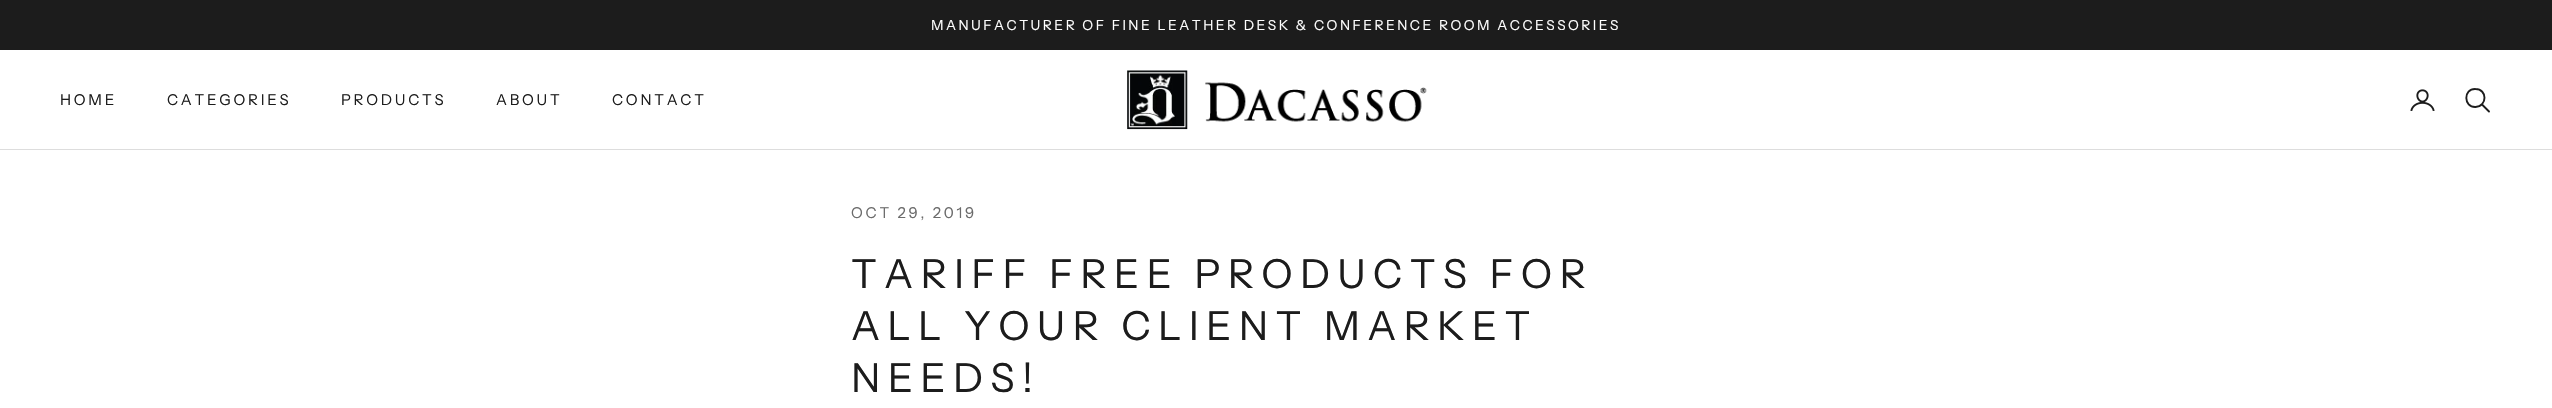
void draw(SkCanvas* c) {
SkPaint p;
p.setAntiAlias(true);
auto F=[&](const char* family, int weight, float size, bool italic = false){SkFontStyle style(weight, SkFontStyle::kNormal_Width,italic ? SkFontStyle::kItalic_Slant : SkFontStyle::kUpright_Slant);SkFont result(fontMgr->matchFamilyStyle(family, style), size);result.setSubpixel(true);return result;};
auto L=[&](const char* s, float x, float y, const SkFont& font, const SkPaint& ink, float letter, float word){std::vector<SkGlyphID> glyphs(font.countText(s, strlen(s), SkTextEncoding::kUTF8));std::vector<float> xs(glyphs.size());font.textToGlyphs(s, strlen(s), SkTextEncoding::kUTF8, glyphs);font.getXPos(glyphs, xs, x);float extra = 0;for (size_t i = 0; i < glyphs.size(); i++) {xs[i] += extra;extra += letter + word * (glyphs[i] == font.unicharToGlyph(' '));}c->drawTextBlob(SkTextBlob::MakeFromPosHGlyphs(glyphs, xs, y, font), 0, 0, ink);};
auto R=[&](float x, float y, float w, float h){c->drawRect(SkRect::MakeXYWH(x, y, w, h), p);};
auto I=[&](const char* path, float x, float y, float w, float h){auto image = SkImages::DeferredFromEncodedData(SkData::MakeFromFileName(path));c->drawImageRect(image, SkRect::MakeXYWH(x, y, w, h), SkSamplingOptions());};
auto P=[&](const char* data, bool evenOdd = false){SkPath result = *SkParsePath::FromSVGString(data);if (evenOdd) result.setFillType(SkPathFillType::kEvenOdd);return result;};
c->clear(0xffffffff);
p.setColor(0xff1c1c1c);
R(0,0,2552,50);
auto f1 = F("Instrument Sans",400,13.75);
p.setColor(0xffffffff);
L("MANUFACTURER OF FINE LEATHER DESK & CONFERENCE ROOM ACCESSORIES",931,30,f1,p,2.48,0);
p.setColor(0xffdddddd);
R(0,149,2552,1);
auto f2 = F("Instrument Sans",400,15);
p.setColor(0xff1c1c1c);
L("HOME",60,105,f2,p,2.75,0);
L("CATEGORIES",167,105,f2,p,2.75,0);
L("PRODUCTS",341,105,f2,p,2.75,0);
L("ABOUT",496,105,f2,p,2.75,0);
L("CONTACT",612,105,f2,p,2.75,0);
I("1.png",1127,70,300,60);
I("2.png",2410,89,25,22);
p.setStroke(true);
p.setStrokeWidth(1.9);
c->drawPath(P("M2475.5 89c-12.5-.5-12 18.5 0 18c12-.5 12-18 0-18z"),p);
p.setStrokeCap(SkPaint::kRound_Cap);
c->drawPath(P("M2482.5 105l6.5 6.5"),p);
p.setStroke(false);
p.setColor(0xff6b6b6b);
L("OCT 29, 2019",851,218,f2,p,2.75,0);
auto f3 = F("Instrument Sans",400,40);
p.setColor(0xff1c1c1c);
L("TARIFF FREE PRODUCTS FOR",851,288,f3,p,7.2,0);
L("ALL YOUR CLIENT MARKET",851,340,f3,p,7.2,0);
L("NEEDS!",851,392,f3,p,7.2,0);
}
